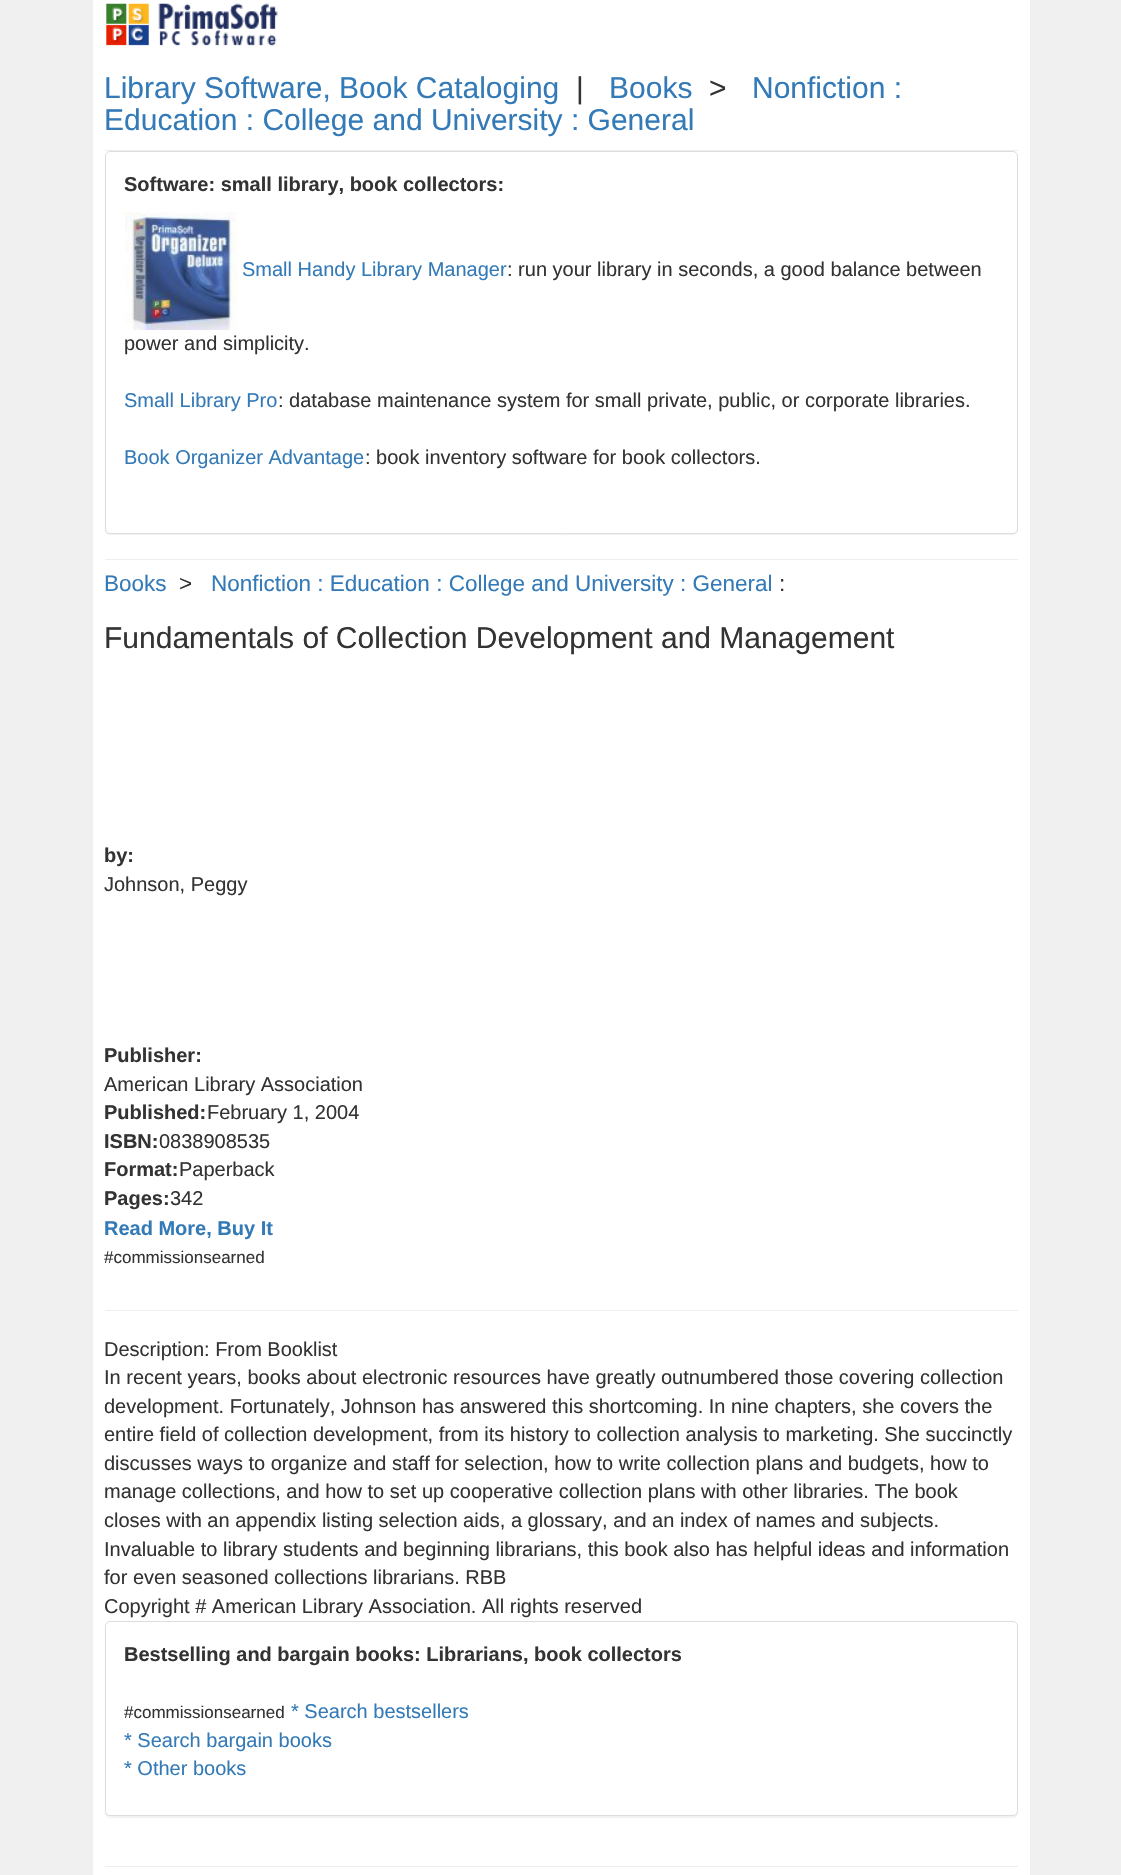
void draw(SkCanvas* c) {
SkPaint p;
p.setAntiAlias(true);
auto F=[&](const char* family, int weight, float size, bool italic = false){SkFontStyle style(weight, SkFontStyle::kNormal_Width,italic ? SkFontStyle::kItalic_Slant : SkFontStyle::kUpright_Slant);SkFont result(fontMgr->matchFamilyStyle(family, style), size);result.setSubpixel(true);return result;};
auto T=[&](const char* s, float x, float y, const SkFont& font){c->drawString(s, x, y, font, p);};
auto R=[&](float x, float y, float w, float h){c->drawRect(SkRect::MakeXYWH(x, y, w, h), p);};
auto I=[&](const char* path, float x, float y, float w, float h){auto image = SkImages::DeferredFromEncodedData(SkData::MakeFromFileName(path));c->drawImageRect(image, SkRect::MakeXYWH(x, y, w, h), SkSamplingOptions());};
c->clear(0xfff0f0f0);
p.setColor(0xffffffff);
R(93,0,937,1875);
I("1.png",106,3,172,43);
auto f1 = F("Liberation Sans",400,30);
p.setColor(0xff337ab7);
T("Library Software, Book Cataloging",104,98,f1);
p.setColor(0xff333333);
T("|",576,98,f1);
p.setColor(0xff337ab7);
T("Books",609,98,f1);
p.setColor(0xff333333);
T(">",709,98,f1);
p.setColor(0xff337ab7);
T("Nonfiction :",752,98,f1);
T("Education : College and University : General",104,130,f1);
p.setColor(0xffeeeeee);
R(105,150,913,1);
p.setColor(0x0d000000);
p.setMaskFilter(SkMaskFilter::MakeBlur(kNormal_SkBlurStyle, .5));
c->drawRoundRect(SkRect::MakeXYWH(105,153,913,382),5,5,p);
p.setMaskFilter(nullptr);
p.setColor(0xffffffff);
c->drawRoundRect(SkRect::MakeXYWH(105.5,151.5,912,382),4.5,4.5,p);
p.setStroke(true);
p.setStrokeWidth(1);
p.setColor(0xffdddddd);
c->drawRoundRect(SkRect::MakeXYWH(105.5,151.5,912,382),4.5,4.5,p);
auto f2 = F("Liberation Sans",700,20);
p.setStroke(false);
p.setColor(0xff333333);
T("Software: small library, book collectors:",124,191,f2);
I("2.png",125,212,113,118);
auto f3 = F("Liberation Sans",400,20);
p.setColor(0xff337ab7);
T("Small Handy Library Manager",242,276,f3);
p.setColor(0xff333333);
T(": run your library in seconds, a good balance between",507,276,f3);
T("power and simplicity.",124,350,f3);
p.setColor(0xff337ab7);
T("Small Library Pro",124,407,f3);
p.setColor(0xff333333);
T(": database maintenance system for small private, public, or corporate libraries.",278,407,f3);
p.setColor(0xff337ab7);
T("Book Organizer Advantage",124,464,f3);
p.setColor(0xff333333);
T(": book inventory software for book collectors.",365,464,f3);
p.setColor(0xffeeeeee);
R(105,559,913,1);
auto f4 = F("Liberation Sans",400,22.5);
p.setColor(0xff337ab7);
T("Books",104,591,f4);
p.setColor(0xff333333);
T(">",179,591,f4);
p.setColor(0xff337ab7);
T("Nonfiction : Education : College and University : General",211,591,f4);
p.setColor(0xff333333);
T(":",779,591,f4);
T("Fundamentals of Collection Development and Management",104,648,f1);
T("by:",104,862,f2);
T("Johnson, Peggy",104,891,f3);
T("Publisher:",104,1062,f2);
T("American Library Association",104,1091,f3);
T("Published:",104,1119,f2);
T("February 1, 2004",207,1119,f3);
T("ISBN:",104,1148,f2);
T("0838908535",159,1148,f3);
T("Format:",104,1176,f2);
T("Paperback",179,1176,f3);
T("Pages:",104,1205,f2);
T("342",170,1205,f3);
p.setColor(0xff337ab7);
T("Read More, Buy It",104,1235,f2);
auto f5 = F("Liberation Sans",400,17);
p.setColor(0xff333333);
T("#commissionsearned",104,1263,f5);
p.setColor(0xffeeeeee);
R(105,1310,913,1);
p.setColor(0xff333333);
T("Description: From Booklist",104,1356,f3);
T("In recent years, books about electronic resources have greatly outnumbered those covering collection",104,1384,f3);
T("development. Fortunately, Johnson has answered this shortcoming. In nine chapters, she covers the",104,1413,f3);
T("entire field of collection development, from its history to collection analysis to marketing. She succinctly",104,1441,f3);
T("discusses ways to organize and staff for selection, how to write collection plans and budgets, how to",104,1470,f3);
T("manage collections, and how to set up cooperative collection plans with other libraries. The book",104,1498,f3);
T("closes with an appendix listing selection aids, a glossary, and an index of names and subjects.",104,1527,f3);
T("Invaluable to library students and beginning librarians, this book also has helpful ideas and information",104,1556,f3);
T("for even seasoned collections librarians. RBB",104,1584,f3);
T("Copyright # American Library Association. All rights reserved",104,1613,f3);
p.setColor(0x0d000000);
p.setMaskFilter(SkMaskFilter::MakeBlur(kNormal_SkBlurStyle, .5));
c->drawRoundRect(SkRect::MakeXYWH(105,1623,913,195),5,5,p);
p.setMaskFilter(nullptr);
p.setColor(0xffffffff);
c->drawRoundRect(SkRect::MakeXYWH(105.5,1621.5,912,194),4.5,4.5,p);
p.setStroke(true);
p.setColor(0xffdddddd);
c->drawRoundRect(SkRect::MakeXYWH(105.5,1621.5,912,194),4.5,4.5,p);
p.setStroke(false);
p.setColor(0xff333333);
T("Bestselling and bargain books: Librarians, book collectors",124,1661,f2);
T("#commissionsearned",124,1718,f5);
p.setColor(0xff337ab7);
T("* Search bestsellers",291,1718,f3);
T("* Search bargain books",124,1747,f3);
T("* Other books",124,1775,f3);
p.setColor(0xffeeeeee);
R(105,1866,913,1);
}
